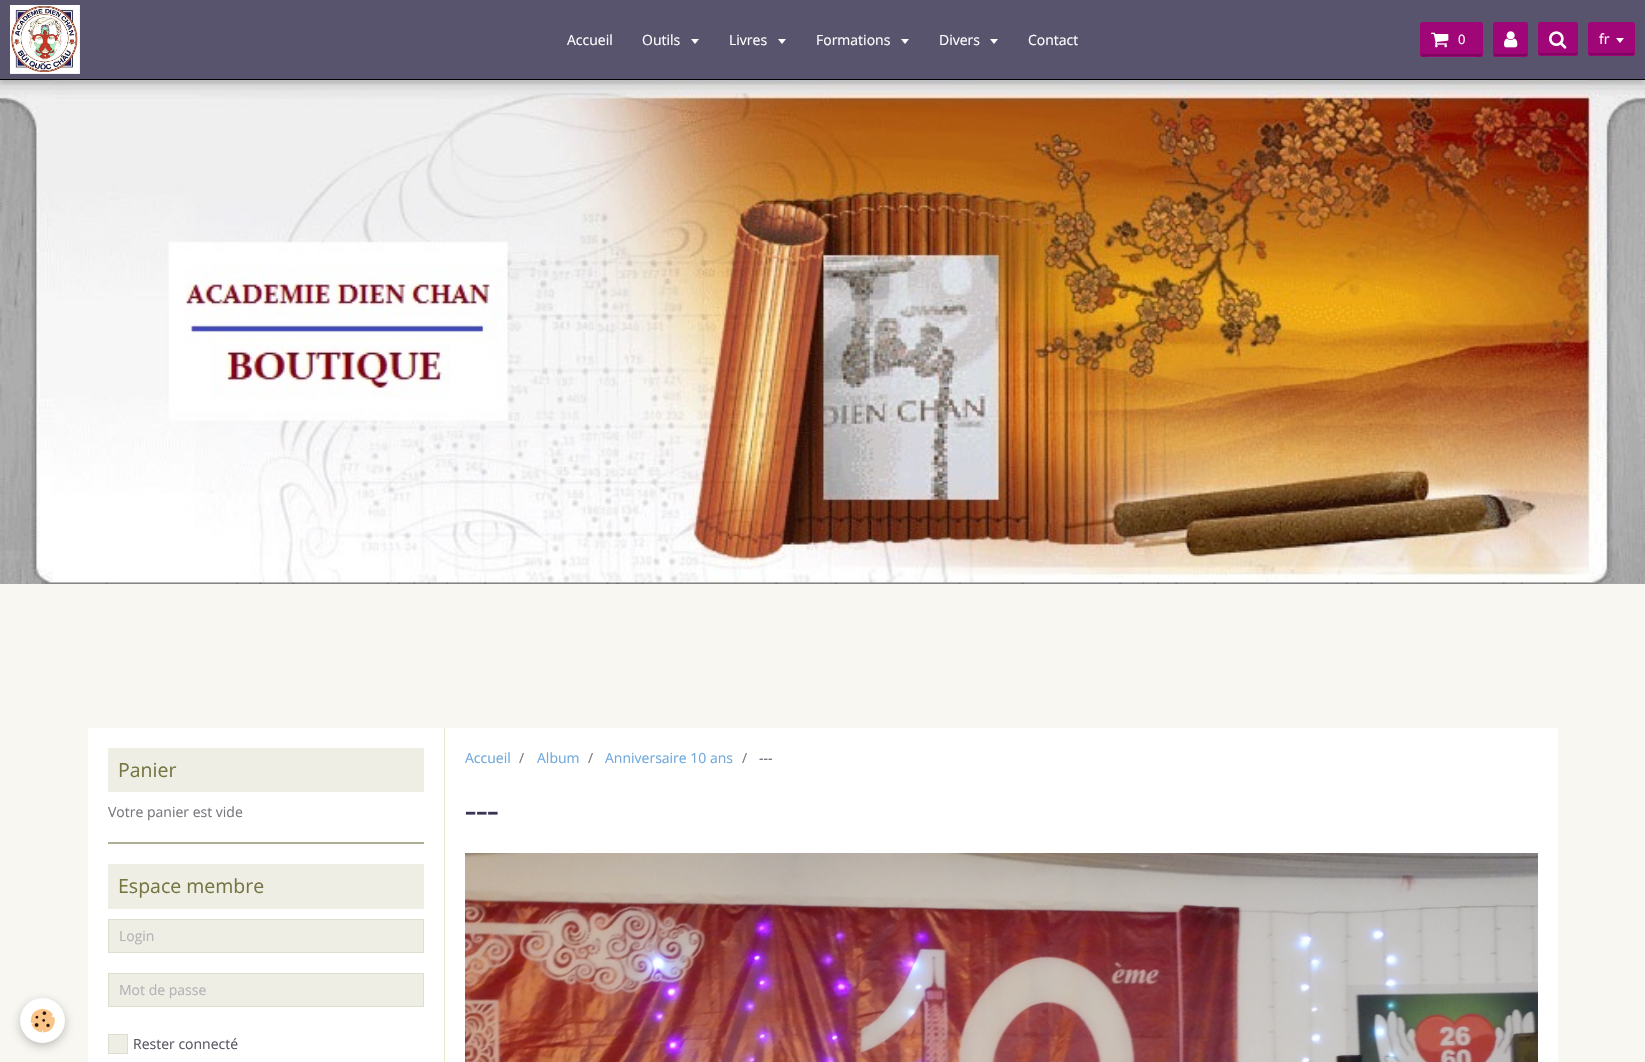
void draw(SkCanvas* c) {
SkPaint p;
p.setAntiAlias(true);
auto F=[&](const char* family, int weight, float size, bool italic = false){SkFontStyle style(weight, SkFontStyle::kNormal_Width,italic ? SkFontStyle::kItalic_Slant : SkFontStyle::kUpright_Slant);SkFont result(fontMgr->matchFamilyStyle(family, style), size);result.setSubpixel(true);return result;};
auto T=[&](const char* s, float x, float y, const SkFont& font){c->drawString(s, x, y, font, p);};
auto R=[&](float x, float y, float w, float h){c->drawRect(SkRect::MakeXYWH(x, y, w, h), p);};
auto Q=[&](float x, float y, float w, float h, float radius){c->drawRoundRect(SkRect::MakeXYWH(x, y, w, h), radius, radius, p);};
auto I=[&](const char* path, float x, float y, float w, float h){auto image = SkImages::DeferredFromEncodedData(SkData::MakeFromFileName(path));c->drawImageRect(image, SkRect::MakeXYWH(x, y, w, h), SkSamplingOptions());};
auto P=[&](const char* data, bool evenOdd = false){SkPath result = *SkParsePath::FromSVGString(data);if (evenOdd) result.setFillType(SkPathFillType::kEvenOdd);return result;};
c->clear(0xfff8f7f2);
I("5.png",0,80,1645,504);
p.setColor(0x33000000);
p.setMaskFilter(SkMaskFilter::MakeBlur(kNormal_SkBlurStyle, 2.5));
c->drawRect(SkRect::MakeXYWH(0,2,1645,80),p);
p.setMaskFilter(nullptr);
p.setColor(0xff58546e);
R(0,0,1645,79);
p.setColor(0xff000000);
R(0,79,1645,1);
I("1.png",10,5,70,69);
auto f1 = F("Open Sans",400,14);
p.setColor(0xffffffff);
T("Accueil",567,45,f1);
T("Outils",642,45,f1);
c->drawPath(P("M691 39h8l-4 5z"),p);
T("Livres",729,45,f1);
c->drawPath(P("M778 39h8l-4 5z"),p);
T("Formations",816,45,f1);
c->drawPath(P("M901 39h8l-4 5z"),p);
T("Divers",939,45,f1);
c->drawPath(P("M990 39h8l-4 5z"),p);
T("Contact",1028,45,f1);
p.setColor(0xffa00678);
Q(1420,22,63,35,2.5);
p.setColor(0xff800560);
c->drawPath(P("M1421 52c0 7 3 4 11 4h39c8 0 11 3 11-4c0 1-1 2-2 2h-57c-1 0-2-1-2-2z"),p);
I("2.png",1431,32,18,16);
auto f2 = F("Open Sans",400,13);
p.setColor(0xffffffff);
T("0",1458,44,f2);
p.setColor(0xffa00678);
Q(1493,22,35,35,2.5);
p.setColor(0xff800560);
c->drawPath(P("M1494 52c0 5 .5 4 6.5 4h20c6 0 6.5 1 6.5-4c0 1-1 2-2 2h-29c-1 0-2-1-2-2z"),p);
I("3.png",1504,31,14,17);
p.setColor(0xffa00678);
Q(1538,22,40,34,2.5);
p.setColor(0xff800560);
c->drawPath(P("M1539 51c0 5.5 1 4 7.5 4h23c6.5 0 7.5 1.5 7.5-4c0 1-1 2-2 2h-34c-1 0-2-1-2-2z"),p);
I("4.png",1549,31,18,18);
p.setColor(0xffa00678);
Q(1588,22,47,34,2.5);
p.setColor(0xff800560);
c->drawPath(P("M1589 51c0 6 1 4 9 4h28c7 0 8 2 8-4c0 1-1 2-2 2h-41c-1 0-2-1-2-2z"),p);
p.setColor(0xffffffff);
T("fr",1599,44,f1);
c->drawPath(P("M1616 38h8l-4 5z"),p);
p.setColor(0x3d000000);
p.setMaskFilter(SkMaskFilter::MakeBlur(kNormal_SkBlurStyle, 5));
c->drawRoundRect(SkRect::MakeXYWH(20,1001,45,45),22.5,22.5,p);
p.setMaskFilter(nullptr);
p.setColor(0xffffffff);
c->drawCircle(42.5,1020.5,22.5,p);
I("6.png",30,1008,25,25);
R(88,728,356,334);
p.setColor(0xffe7e7c5);
R(444,728,1,334);
p.setColor(0xffafaf95);
R(108,842,316,2);
p.setColor(0xffeeeee4);
R(108,748,316,44);
auto f3 = F("Open Sans",400,19.5);
p.setColor(0xff767543);
T("Panier",118,777,f3);
p.setColor(0xff77777d);
T("Votre panier est vide",108,817,f1);
p.setColor(0xffeeeee4);
R(108,864,316,45);
p.setColor(0xff767543);
T("Espace membre",118,893,f3);
p.setColor(0xffeeeee4);
c->drawRect(SkRect::MakeXYWH(108.5,919.5,315,33),p);
p.setStroke(true);
p.setStrokeWidth(1);
p.setColor(0xffdedecf);
c->drawRect(SkRect::MakeXYWH(108.5,919.5,315,33),p);
p.setStroke(false);
p.setColor(0xffb3b2b6);
T("Login",119,941,f1);
p.setColor(0xffeeeee4);
c->drawRect(SkRect::MakeXYWH(108.5,973.5,315,33),p);
p.setStroke(true);
p.setColor(0xffdedecf);
c->drawRect(SkRect::MakeXYWH(108.5,973.5,315,33),p);
p.setStroke(false);
p.setColor(0xffb3b2b6);
T("Mot de passe",119,995,f1);
p.setColor(0xffeeeee4);
c->drawRect(SkRect::MakeXYWH(108.5,1034.5,19,19),p);
p.setStroke(true);
p.setColor(0xffdedecf);
c->drawRect(SkRect::MakeXYWH(108.5,1034.5,19,19),p);
p.setStroke(false);
p.setColor(0xff585764);
T("Rester connecté",133,1049,f1);
p.setColor(0xffffffff);
R(445,728,1113,334);
p.setColor(0xff6fa8dc);
T("Accueil",465,763,f1);
p.setColor(0xff77777d);
T("/",519,763,f1);
p.setColor(0xff6fa8dc);
T("Album",537,763,f1);
p.setColor(0xff77777d);
T("/",588,763,f1);
p.setColor(0xff6fa8dc);
T("Anniversaire 10 ans",605,763,f1);
p.setColor(0xff77777d);
T("/",742,763,f1);
p.setColor(0xff585764);
T("---",759,763,f1);
auto f4 = F("Droid Serif",400,36);
p.setColor(0xff3a3555);
T("---",465,823,f4);
I("7.png",465,853,1073,209);
}
